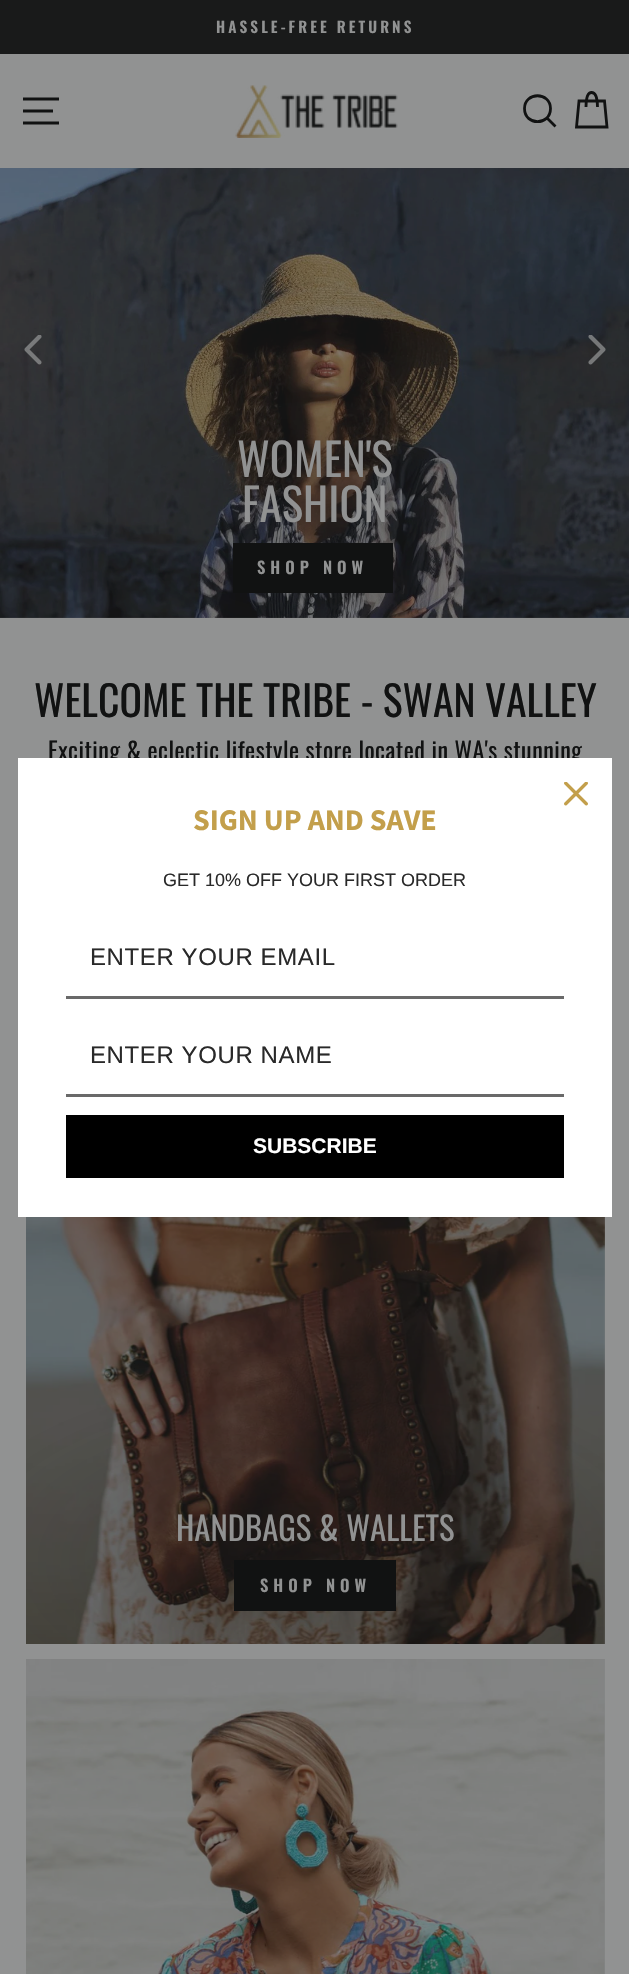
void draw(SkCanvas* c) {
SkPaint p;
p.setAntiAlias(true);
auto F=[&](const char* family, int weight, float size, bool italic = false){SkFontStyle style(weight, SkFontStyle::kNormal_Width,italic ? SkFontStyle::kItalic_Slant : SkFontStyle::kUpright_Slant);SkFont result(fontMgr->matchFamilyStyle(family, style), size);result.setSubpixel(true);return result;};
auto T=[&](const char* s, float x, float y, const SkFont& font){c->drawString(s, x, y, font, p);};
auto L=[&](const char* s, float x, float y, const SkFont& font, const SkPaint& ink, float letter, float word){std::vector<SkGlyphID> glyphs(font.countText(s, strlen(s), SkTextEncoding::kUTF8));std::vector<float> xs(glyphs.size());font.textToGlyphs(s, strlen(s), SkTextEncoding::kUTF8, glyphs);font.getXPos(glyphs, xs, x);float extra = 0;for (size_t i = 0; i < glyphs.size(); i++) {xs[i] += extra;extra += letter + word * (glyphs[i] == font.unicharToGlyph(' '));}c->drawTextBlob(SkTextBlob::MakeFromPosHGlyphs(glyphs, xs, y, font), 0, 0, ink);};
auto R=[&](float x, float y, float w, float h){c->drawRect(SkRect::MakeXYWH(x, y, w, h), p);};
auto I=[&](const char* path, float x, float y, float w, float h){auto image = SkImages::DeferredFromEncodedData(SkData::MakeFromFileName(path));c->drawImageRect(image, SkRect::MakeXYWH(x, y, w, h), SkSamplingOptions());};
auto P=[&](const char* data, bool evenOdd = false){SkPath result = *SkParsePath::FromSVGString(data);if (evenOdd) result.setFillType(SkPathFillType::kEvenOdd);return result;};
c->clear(0xff919292);
p.setColor(0xff848585);
R(604,1659,1,315);
p.setColor(0xff191a1a);
R(0,0,629,54);
auto f1 = F("Oswald",600,15.25);
p.setColor(0xff919292);
L("HASSLE-FREE RETURNS",216,33,f1,p,3.1,0);
p.setStroke(true);
p.setStrokeWidth(2.8);
p.setColor(0xff111212);
c->drawPath(P("M23 99h36m-36 12h30m-30 12h36"),p);
I("1.png",235,85,163,53);
c->drawPath(P("M550.5 108.5c0 17.5-26 17.5-26 0c0-17 26-17 26 0zm5 18l-8.5-8.5"),p);
c->drawPath(P("M586 107c0-11.5 2.5-14.5 5.5-14.5c3.5 0 6 3 6 14.5m-18.5-6h25.5l2.5 26h-30.5z"),p);
I("4.png",0,168,629,450);
p.setStroke(false);
p.setColor(0x1a111212);
R(0,168,629,450);
I("2.png",24,335,18,30);
I("3.png",588,335,18,30);
{
const SkColor colors[] = {0x33111212,0x00111212};
const float stops[] = {0,.6};
SkMatrix m = SkMatrix::Translate(315,515).preScale(541,326);
p.setShader(SkGradientShader::MakeRadial({0, 0}, 1, colors, stops, 2, SkTileMode::kClamp, 0, &m));
p.setAlpha(255);
}
R(108,344,413,274);
auto f2 = F("Oswald",400,45);
p.setShader(nullptr);
p.setColor(0xff919292);
T("WOMEN'S",237,477,f2);
T("FASHION",242,522,f2);
p.setColor(0xff111212);
R(233,543,160,50);
auto f3 = F("Oswald",600,16.5);
p.setColor(0xff919292);
L("SHOP NOW",257,574,f3,p,5,0);
auto f4 = F("Oswald",400,41.7);
p.setColor(0xff111212);
T("WELCOME THE TRIBE - SWAN VALLEY",34,717,f4);
auto f5 = F("Oswald",400,24);
L("Exciting & eclectic lifestyle store located in WA's stunning",48,760,f5,p,.5,0);
I("5.png",26,1217,579,427);
{
const SkColor colors[] = {0x33111212,0x00111212};
const float stops[] = {0,.6};
SkMatrix m = SkMatrix::Translate(315,1562).preScale(664,329);
p.setShader(SkGradientShader::MakeRadial({0, 0}, 1, colors, stops, 2, SkTileMode::kClamp, 0, &m));
p.setAlpha(255);
}
R(26,1404,579,240);
auto f6 = F("Oswald",400,32.75);
p.setShader(nullptr);
p.setColor(0xff919292);
T("HANDBAGS & WALLETS",176,1541,f6);
p.setColor(0xff111212);
R(234,1560,162,51);
p.setColor(0xff919292);
L("SHOP NOW",260,1592,f3,p,5,0);
I("6.png",26,1659,579,315);
p.setColor(0xffffffff);
R(18,758,594,459);
I("7.png",564,782,24,24);
auto f7 = F("Source Sans Pro",700,30);
p.setColor(0xffc39f4b);
T("SIGN UP AND SAVE",193,830,f7);
auto f8 = F("Liberation Sans",400,18);
p.setColor(0xff292929);
T("GET 10% OFF YOUR FIRST ORDER",163,886,f8);
p.setColor(0xff696969);
R(66,996,498,3);
auto f9 = F("Liberation Sans",400,24);
p.setColor(0xff292929);
L("ENTER YOUR EMAIL",90,965,f9,p,.6,0);
p.setColor(0xff696969);
R(66,1094,498,3);
p.setColor(0xff292929);
L("ENTER YOUR NAME",90,1063,f9,p,.6,0);
p.setColor(0xff000000);
R(66,1115,498,63);
auto f10 = F("Liberation Sans",700,21);
p.setColor(0xffffffff);
T("SUBSCRIBE",253,1153,f10);
}
